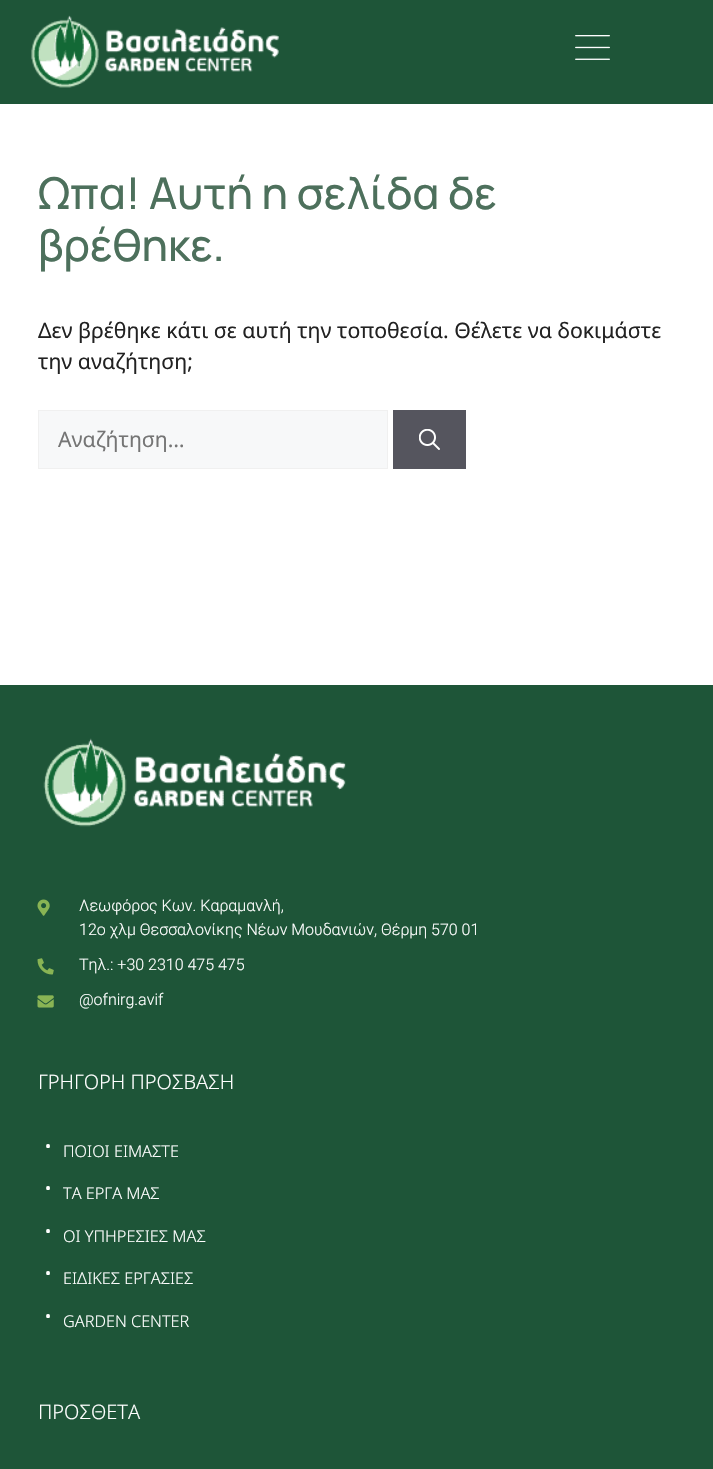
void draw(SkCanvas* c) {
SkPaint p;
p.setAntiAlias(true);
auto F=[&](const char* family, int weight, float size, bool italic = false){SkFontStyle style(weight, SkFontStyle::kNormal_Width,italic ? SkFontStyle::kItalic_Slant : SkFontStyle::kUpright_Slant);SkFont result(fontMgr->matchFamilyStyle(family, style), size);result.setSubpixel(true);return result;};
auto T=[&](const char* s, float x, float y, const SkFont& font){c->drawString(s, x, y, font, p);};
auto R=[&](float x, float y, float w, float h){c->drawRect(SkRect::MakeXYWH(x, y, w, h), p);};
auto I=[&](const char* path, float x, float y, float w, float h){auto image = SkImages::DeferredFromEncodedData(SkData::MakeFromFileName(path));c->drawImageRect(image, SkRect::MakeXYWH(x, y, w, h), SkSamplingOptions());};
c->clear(0xffffffff);
p.setColor(0xff1e5538);
R(0,0,713,104);
I("1.png",31,15,248,73);
I("2.png",575,35,35,25);
auto f1 = F("Manrope",500,43.75);
p.setColor(0xff4d705c);
T("Ωπα! Αυτή η σελίδα δε",38,209,f1);
T("βρέθηκε.",38,261,f1);
auto f2 = F("Noto Sans",400,21.25);
p.setColor(0xff222222);
T("Δεν βρέθηκε κάτι σε αυτή την τοποθεσία. Θέλετε να δοκιμάστε",38,338,f2);
T("την αναζήτηση;",38,369,f2);
p.setColor(0xfff7f8f9);
c->drawRect(SkRect::MakeXYWH(38.5,410.5,349,58),p);
p.setStroke(true);
p.setStrokeWidth(1);
p.setColor(0xfff0f0f0);
c->drawRect(SkRect::MakeXYWH(38.5,410.5,349,58),p);
p.setStroke(false);
p.setColor(0xff757575);
T("Αναζήτηση…",58,447,f2);
p.setColor(0xff55555e);
R(393,410,73,59);
I("3.png",419,429,21,21);
p.setColor(0xff1e5538);
R(0,685,713,784);
I("4.png",43,738,303,89);
I("5.png",37,899,13,17);
auto f3 = F("Roboto",300,16);
p.setColor(0xffffffff);
T("Λεωφόρος Κων. Καραμανλή,",79,911,f3);
T("12ο χλμ Θεσσαλονίκης Νέων Μουδανιών, Θέρμη 570 01",79,935,f3);
I("6.png",37,958,17,17);
T("Tηλ.: +30 2310 475 475",79,970,f3);
I("7.png",37,995,17,13);
T("@ofni",79,1005,f3);
T("rg.avif",120,1005,f3);
auto f4 = F("Noto Sans",300,20);
T("ΓΡΗΓΟΡΗ ΠΡΟΣΒΑΣΗ",38,1089,f4);
auto f5 = F("Noto Sans",400,16.25);
T("•",45,1152,f5);
auto f6 = F("Noto Sans",300,16.25);
T("ΠΟΙΟΙ ΕΙΜΑΣΤΕ",63,1157,f6);
T("•",45,1194,f5);
T("ΤΑ ΕΡΓΑ ΜΑΣ",63,1199,f6);
T("•",45,1237,f5);
T("ΟΙ ΥΠΗΡΕΣΙΕΣ ΜΑΣ",63,1242,f6);
T("•",45,1279,f5);
T("ΕΙΔΙΚΕΣ ΕΡΓΑΣΙΕΣ",63,1284,f6);
T("•",45,1322,f5);
T("GARDEN CENTER",63,1327,f6);
T("ΠΡΟΣΘΕΤΑ",38,1419,f4);
}
